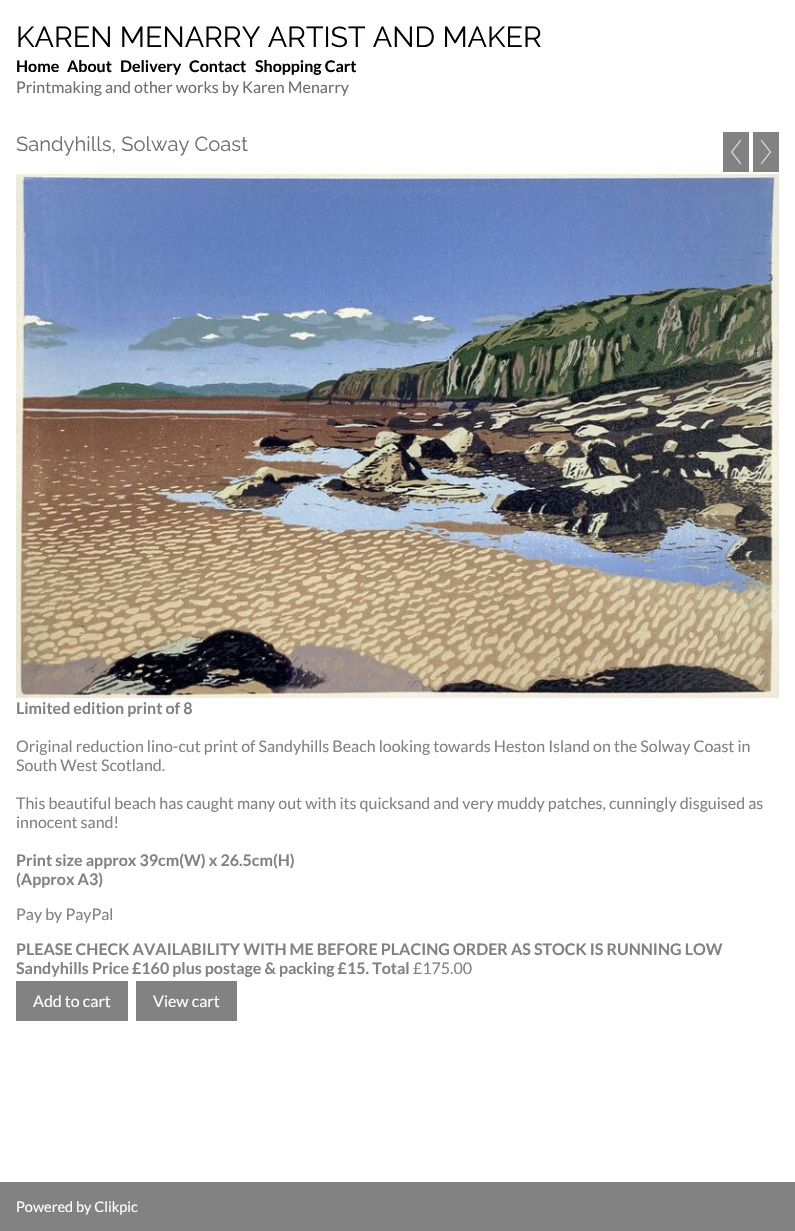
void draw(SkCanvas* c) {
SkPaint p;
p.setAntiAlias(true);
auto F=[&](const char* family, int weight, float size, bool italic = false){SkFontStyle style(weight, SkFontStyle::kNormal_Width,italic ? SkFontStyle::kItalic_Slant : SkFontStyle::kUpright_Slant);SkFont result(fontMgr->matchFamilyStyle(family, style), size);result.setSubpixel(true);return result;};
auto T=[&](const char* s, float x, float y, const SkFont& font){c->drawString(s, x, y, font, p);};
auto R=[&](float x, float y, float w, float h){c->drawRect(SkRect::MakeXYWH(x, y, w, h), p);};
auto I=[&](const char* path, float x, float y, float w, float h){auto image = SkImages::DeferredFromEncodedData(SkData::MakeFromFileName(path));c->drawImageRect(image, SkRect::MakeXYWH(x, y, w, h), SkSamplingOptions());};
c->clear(0xffffffff);
auto f1 = F("Raleway",100,28.75);
p.setColor(0xff060000);
T("KAREN MENARRY ARTIST AND MAKER",16,47,f1);
auto f2 = F("Lato",700,16);
T("Home",16,72,f2);
T("About",67,72,f2);
T("Delivery",120,72,f2);
T("Contact",189,72,f2);
T("Shopping Cart",255,72,f2);
auto f3 = F("Lato",400,16);
p.setColor(0xff6e6e6e);
T("Printmaking and other works by Karen Menarry",16,93,f3);
auto f4 = F("Raleway",100,20.2);
T("Sandyhills, Solway Coast",16,151,f4);
p.setColor(0xff828282);
R(723,132,26,40);
I("1.png",731,140,10,24);
R(753,132,26,40);
I("2.png",761,140,10,24);
I("3.png",16,174,763,524);
T("Limited edition print of 8",16,714,f2);
T("Original reduction lino-cut print of Sandyhills Beach looking towards Heston Island on the Solway Coast in",16,752,f3);
T("South West Scotland.",16,771,f3);
T("This beautiful beach has caught many out with its quicksand and very muddy patches, cunningly disguised as",16,809,f3);
T("innocent sand!",16,828,f3);
T("Print size approx 39cm(W) x 26.5cm(H)",16,866,f2);
T("(Approx A3)",16,885,f2);
T("Pay by PayPal",16,920,f3);
T("PLEASE CHECK AVAILABILITY WITH ME BEFORE PLACING ORDER AS STOCK IS RUNNING LOW",16,955,f2);
T("Sandyhills Price £160 plus postage & packing £15. Total",16,974,f2);
T("£175.00",413,974,f3);
R(16,981,112,40);
p.setColor(0xffffffff);
T("Add to cart",33,1007,f3);
p.setColor(0xff828282);
R(136,981,101,40);
p.setColor(0xffffffff);
T("View cart",153,1007,f3);
p.setColor(0xff828282);
R(0,1182,795,49);
auto f5 = F("Lato",400,14.5);
p.setColor(0xffffffff);
T("Powered by Clikpic",16,1212,f5);
}
